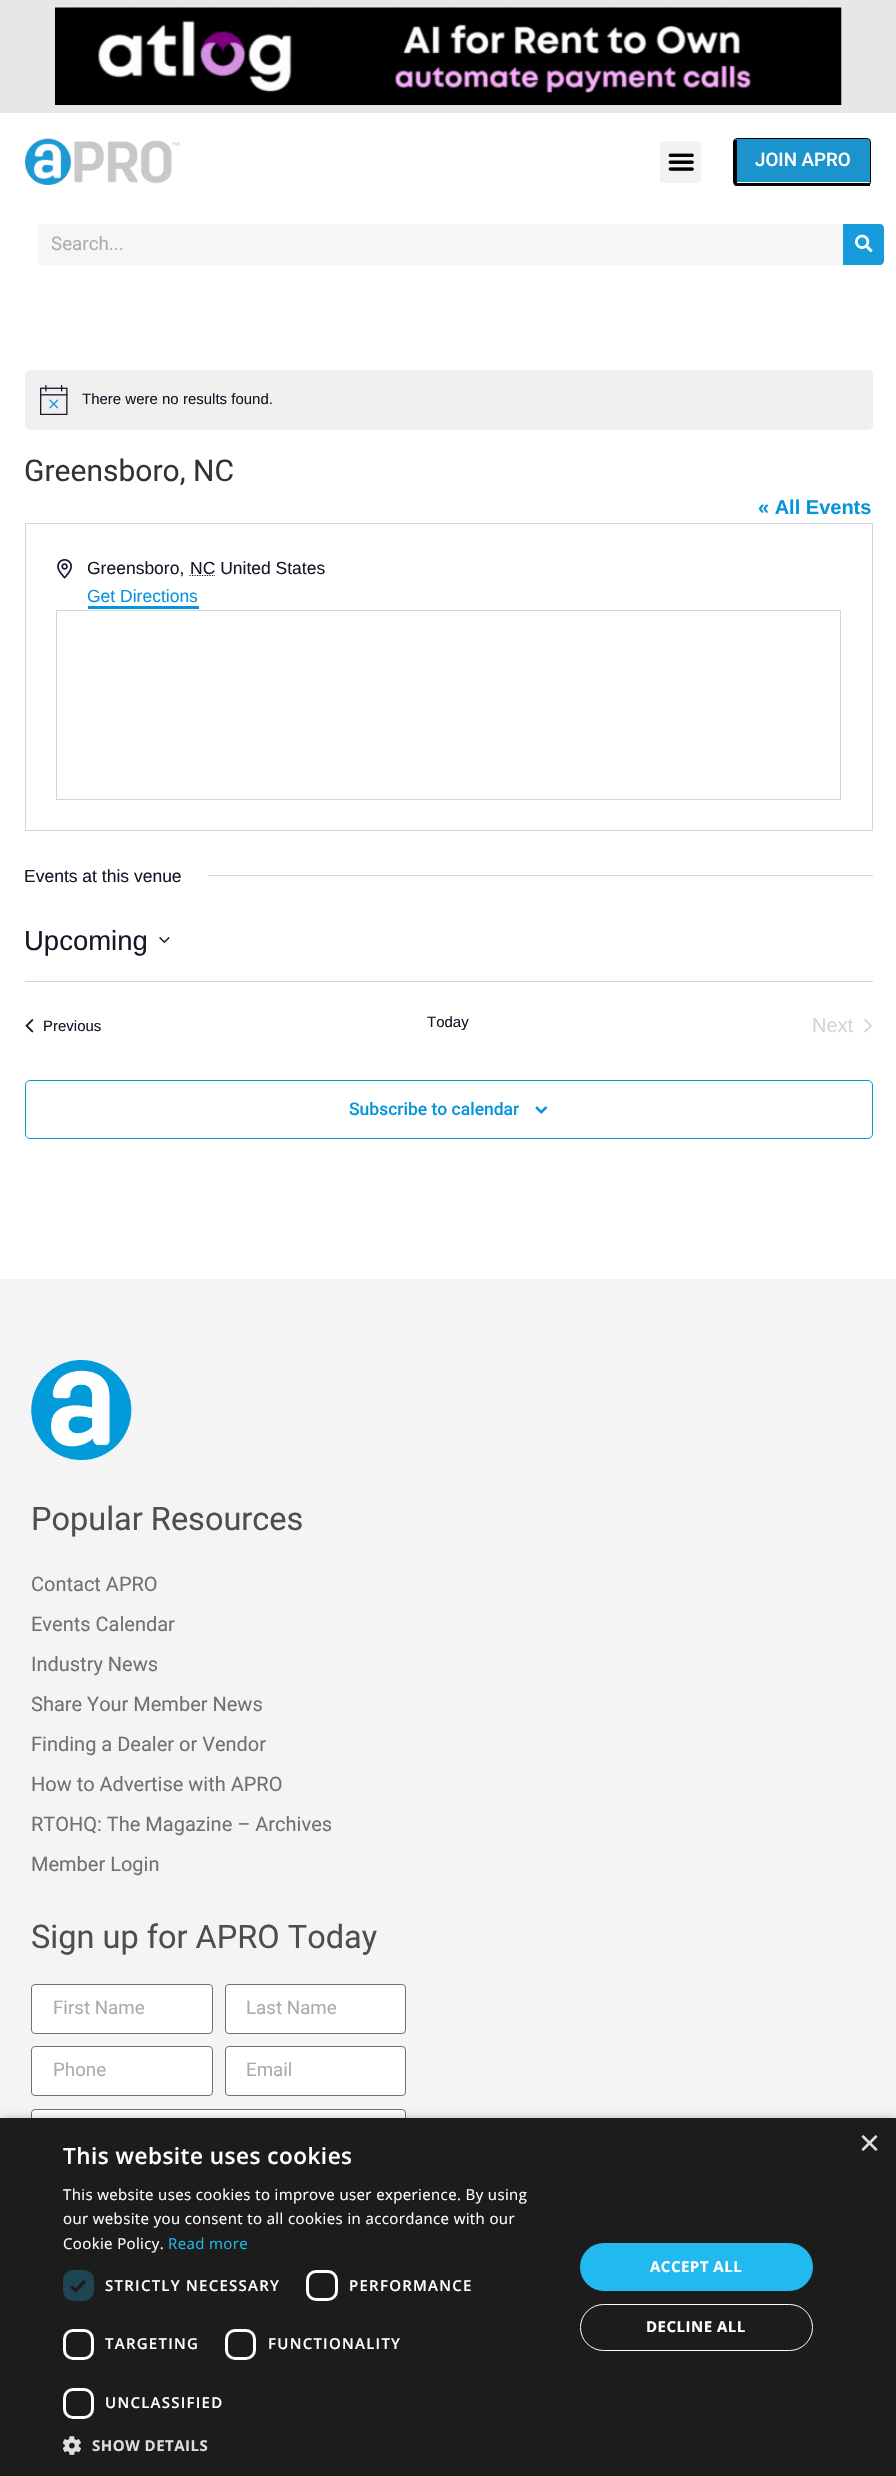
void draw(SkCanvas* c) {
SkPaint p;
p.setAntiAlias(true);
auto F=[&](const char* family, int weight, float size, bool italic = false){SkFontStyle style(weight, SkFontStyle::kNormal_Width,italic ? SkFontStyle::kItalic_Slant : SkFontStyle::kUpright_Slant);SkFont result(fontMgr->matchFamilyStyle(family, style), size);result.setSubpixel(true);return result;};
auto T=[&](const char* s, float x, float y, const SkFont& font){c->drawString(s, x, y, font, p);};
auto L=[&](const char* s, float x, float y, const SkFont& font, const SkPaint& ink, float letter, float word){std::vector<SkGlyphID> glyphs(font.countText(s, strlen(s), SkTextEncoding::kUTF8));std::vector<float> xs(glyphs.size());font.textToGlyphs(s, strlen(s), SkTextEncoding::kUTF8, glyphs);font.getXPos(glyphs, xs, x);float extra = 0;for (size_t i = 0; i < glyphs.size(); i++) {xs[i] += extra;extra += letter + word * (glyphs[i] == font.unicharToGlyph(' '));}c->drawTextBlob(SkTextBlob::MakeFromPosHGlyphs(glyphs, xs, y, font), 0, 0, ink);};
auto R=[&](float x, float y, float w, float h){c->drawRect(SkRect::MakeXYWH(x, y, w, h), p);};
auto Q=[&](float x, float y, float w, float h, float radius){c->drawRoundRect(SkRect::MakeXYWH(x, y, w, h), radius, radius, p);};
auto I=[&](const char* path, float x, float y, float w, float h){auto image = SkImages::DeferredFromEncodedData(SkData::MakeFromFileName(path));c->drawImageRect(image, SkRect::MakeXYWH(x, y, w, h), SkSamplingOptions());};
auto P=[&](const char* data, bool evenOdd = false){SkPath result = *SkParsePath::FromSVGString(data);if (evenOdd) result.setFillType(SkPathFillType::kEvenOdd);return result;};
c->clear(0xffffffff);
p.setColor(0xffe7e7e7);
R(0,0,896,113);
I("1.png",55,7,787,98);
I("2.png",25,138,155,47);
p.setColor(0xfff2f2f2);
Q(660,141,41,42,4);
I("3.png",668,153,26,18);
p.setColor(0xff1b93cd);
c->drawPath(P("M736 139h132c1 0 2 1 2 2v41h-134z"),p);
p.setStroke(true);
p.setStrokeWidth(1);
p.setColor(0xff000000);
c->drawRoundRect(SkRect::MakeXYWH(733.5,138.5,137,47),3.5,3.5,p);
p.setStroke(false);
R(735,183,135,3);
R(734,140,3,45);
auto f1 = F("Roboto",500,18.75);
p.setColor(0xffffffff);
T("JOIN APRO",755,166,f1);
p.setColor(0xfff6f6f6);
Q(38,224,846,41,4);
auto f2 = F("Roboto",400,18.75);
p.setColor(0xffacacac);
T("Search...",51,250,f2);
p.setColor(0xff189bdc);
c->drawPath(P("M843 224h37c2 0 4 2 4 4v33c0 2-2 4-4 4h-37z"),p);
I("4.png",855,234,18,19);
p.setColor(0xffefeff0);
Q(25,370,848,60,5);
I("5.png",40,385,28,30);
auto f3 = F("Liberation Sans",400,15);
p.setColor(0xff141827);
T("There were no results found.",82,404,f3);
auto f4 = F("Roboto",400,30);
p.setColor(0xff333333);
T("Greensboro, NC",24,481,f4);
auto f5 = F("Liberation Sans",700,20);
p.setColor(0xff0794db);
T("« All Events",758,514,f5);
p.setStroke(true);
p.setColor(0xffd5d5d5);
c->drawRect(SkRect::MakeXYWH(25.5,523.5,847,307),p);
I("6.png",57,559,16,20);
auto f6 = F("Liberation Sans",400,17.5);
p.setStroke(false);
p.setColor(0xff141827);
T("Greensboro,",87,574,f6);
p.setStroke(true);
p.setStrokeWidth(1.2);
p.setPathEffect(SkDashPathEffect::Make({{1.25f,1.25f}}, 0));
c->drawPath(P("M189.5 575.5h25.5"),p);
p.setPathEffect(nullptr);
p.setStroke(false);
T("NC United States",190,574,f6);
p.setColor(0xff0794db);
T("Get Directions",87,602,f6);
R(88,606,111,3);
p.setStroke(true);
p.setStrokeWidth(1);
p.setColor(0xffd5d5d5);
c->drawRect(SkRect::MakeXYWH(56.5,610.5,784,189),p);
p.setStroke(false);
p.setColor(0xff141827);
T("Events at this venue",24,882,f6);
p.setColor(0xffd5d5d5);
R(208,875,665,1);
auto f7 = F("Liberation Sans",400,27.5);
p.setColor(0xff141827);
T("Upcoming",24,950,f7);
I("7.png",159,937,11,7);
p.setColor(0xffd5d5d5);
R(25,981,848,1);
I("8.png",25,1019,9,14);
p.setColor(0xff141827);
T("Previous",43,1031,f3);
T("Today",427,1027,f3);
auto f8 = F("Liberation Sans",400,20);
p.setColor(0xffd5d5d5);
T("Next",812,1032,f8);
I("9.png",864,1019,8,14);
p.setStroke(true);
p.setColor(0xff0794db);
c->drawRoundRect(SkRect::MakeXYWH(25.5,1080.5,847,58),4.5,4.5,p);
auto f9 = F("Roboto",500,17.5);
p.setStroke(false);
T("Subscribe to calendar",349,1115,f9);
I("10.png",535,1106,13,8);
p.setColor(0xfff5f4f4);
R(0,1279,896,839);
I("11.png",31,1360,101,100);
auto f10 = F("Roboto",400,32.5);
p.setColor(0xff4e4e4e);
T("Popular Resources",31,1530,f10);
auto f11 = F("Roboto",400,20);
p.setColor(0xff717171);
T("Contact APRO",31,1591,f11);
T("Events Calendar",31,1631,f11);
T("Industry News",31,1671,f11);
T("Share Your Member News",31,1711,f11);
T("Finding a Dealer or Vendor",31,1751,f11);
T("How to Advertise with APRO",31,1791,f11);
T("RTOHQ: The Magazine – Archives",31,1831,f11);
T("Member Login",31,1871,f11);
p.setColor(0xff4e4e4e);
T("Sign up for APRO Today",31,1948,f10);
p.setColor(0xffffffff);
c->drawRoundRect(SkRect::MakeXYWH(31.5,1984.5,181,49),3.5,3.5,p);
p.setStroke(true);
p.setColor(0xff69727d);
c->drawRoundRect(SkRect::MakeXYWH(31.5,1984.5,181,49),3.5,3.5,p);
p.setStroke(false);
p.setColor(0xffacacac);
T("First Name",53,2014,f2);
p.setColor(0xffffffff);
c->drawRoundRect(SkRect::MakeXYWH(225.5,1984.5,180,49),3.5,3.5,p);
p.setStroke(true);
p.setColor(0xff69727d);
c->drawRoundRect(SkRect::MakeXYWH(225.5,1984.5,180,49),3.5,3.5,p);
p.setStroke(false);
p.setColor(0xffacacac);
T("Last Name",246,2014,f2);
p.setColor(0xffffffff);
c->drawRoundRect(SkRect::MakeXYWH(31.5,2046.5,181,49),3.5,3.5,p);
p.setStroke(true);
p.setColor(0xff69727d);
c->drawRoundRect(SkRect::MakeXYWH(31.5,2046.5,181,49),3.5,3.5,p);
p.setStroke(false);
p.setColor(0xffacacac);
T("Phone",53,2076,f2);
p.setColor(0xffffffff);
c->drawRoundRect(SkRect::MakeXYWH(225.5,2046.5,180,49),3.5,3.5,p);
p.setStroke(true);
p.setColor(0xff69727d);
c->drawRoundRect(SkRect::MakeXYWH(225.5,2046.5,180,49),3.5,3.5,p);
p.setStroke(false);
p.setColor(0xffacacac);
T("Email",246,2076,f2);
p.setColor(0xffffffff);
c->drawRoundRect(SkRect::MakeXYWH(31.5,2109.5,374,49),3.5,3.5,p);
p.setStroke(true);
p.setColor(0xff69727d);
c->drawRoundRect(SkRect::MakeXYWH(31.5,2109.5,374,49),3.5,3.5,p);
p.setStroke(false);
p.setColor(0x59000000);
p.setMaskFilter(SkMaskFilter::MakeBlur(kNormal_SkBlurStyle, 5));
c->drawRect(SkRect::MakeXYWH(1,2120,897,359),p);
p.setMaskFilter(nullptr);
p.setColor(0xff1c1c1c);
R(0,2118,896,358);
auto f12 = F("Liberation Sans",400,36);
p.setColor(0xffdddddd);
T("×",859,2155,f12);
auto f13 = F("Open Sans",600,22.5);
p.setColor(0xffffffff);
L("This website uses cookies",63,2164,f13,p,.5,0);
auto f14 = F("Open Sans",400,15);
L("This website uses cookies to improve user experience. By using",63,2200,f14,p,.38,0);
L("our website you consent to all cookies in accordance with our",63,2224,f14,p,.38,0);
L("Cookie Policy.",63,2249,f14,p,.38,0);
p.setColor(0xff22b8f0);
L("Read more",168,2249,f14,p,.38,0);
p.setColor(0xff1e4553);
Q(63,2270,31,31,10);
p.setStroke(true);
p.setStrokeWidth(3.3);
p.setColor(0xff1c1c1c);
c->drawPath(P("M71 2286.5l4.5 4l9.5-9.5"),p);
auto f15 = F("Open Sans",600,15);
p.setStroke(false);
p.setColor(0xffffffff);
L("STRICTLY NECESSARY",105,2291,f15,p,1.25,0);
p.setStroke(true);
p.setStrokeWidth(3);
c->drawRoundRect(SkRect::MakeXYWH(307.5,2271.5,29,28),8.5,8.5,p);
p.setStroke(false);
L("PERFORMANCE",349,2291,f15,p,1.25,0);
p.setStroke(true);
c->drawRoundRect(SkRect::MakeXYWH(64.5,2330.5,28,28),8.5,8.5,p);
p.setStroke(false);
L("TARGETING",105,2349,f15,p,1.25,0);
p.setStroke(true);
c->drawRoundRect(SkRect::MakeXYWH(226.5,2330.5,28,28),8.5,8.5,p);
p.setStroke(false);
L("FUNCTIONALITY",268,2349,f15,p,1.25,0);
p.setStroke(true);
c->drawRoundRect(SkRect::MakeXYWH(64.5,2389.5,28,28),8.5,8.5,p);
p.setStroke(false);
L("UNCLASSIFIED",105,2408,f15,p,1.25,0);
I("12.png",63,2436,18,19);
auto f16 = F("Open Sans",700,15);
p.setColor(0xffdddddd);
L("SHOW DETAILS",92,2451,f16,p,.5,0);
p.setColor(0xff22b8f0);
Q(580,2243,233,48,24);
p.setColor(0xffffffff);
L("ACCEPT ALL",650,2272,f16,p,.5,0);
p.setStroke(true);
p.setStrokeWidth(1);
c->drawRoundRect(SkRect::MakeXYWH(580.5,2304.5,232,46),23,23,p);
p.setStroke(false);
L("DECLINE ALL",646,2332,f16,p,.5,0);
}
